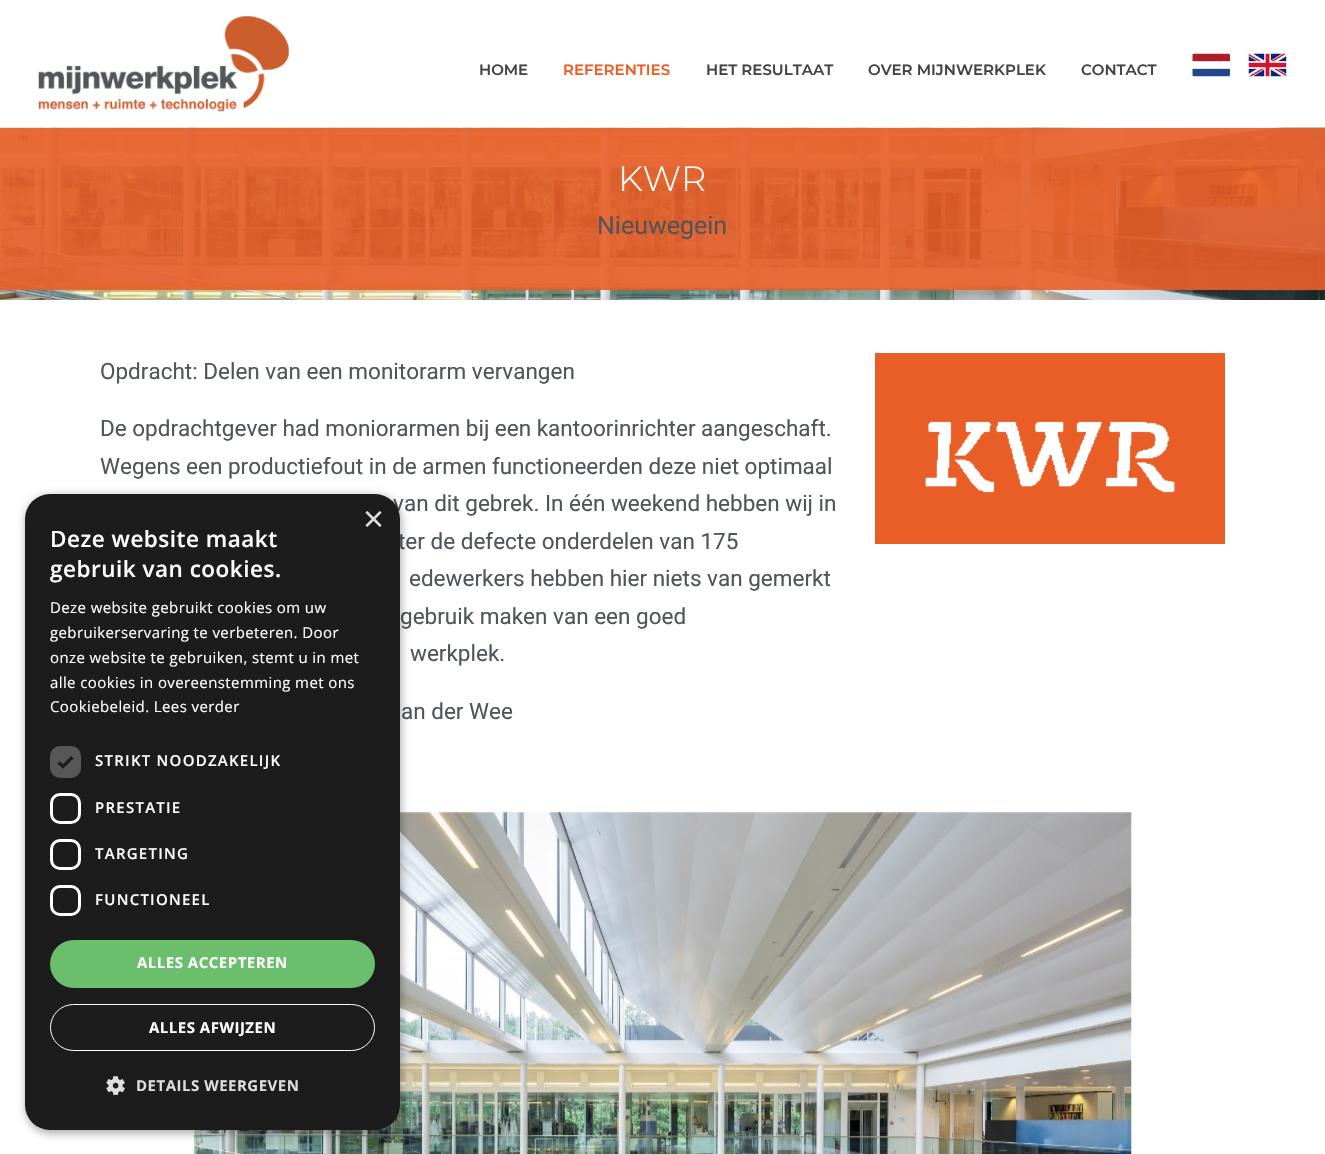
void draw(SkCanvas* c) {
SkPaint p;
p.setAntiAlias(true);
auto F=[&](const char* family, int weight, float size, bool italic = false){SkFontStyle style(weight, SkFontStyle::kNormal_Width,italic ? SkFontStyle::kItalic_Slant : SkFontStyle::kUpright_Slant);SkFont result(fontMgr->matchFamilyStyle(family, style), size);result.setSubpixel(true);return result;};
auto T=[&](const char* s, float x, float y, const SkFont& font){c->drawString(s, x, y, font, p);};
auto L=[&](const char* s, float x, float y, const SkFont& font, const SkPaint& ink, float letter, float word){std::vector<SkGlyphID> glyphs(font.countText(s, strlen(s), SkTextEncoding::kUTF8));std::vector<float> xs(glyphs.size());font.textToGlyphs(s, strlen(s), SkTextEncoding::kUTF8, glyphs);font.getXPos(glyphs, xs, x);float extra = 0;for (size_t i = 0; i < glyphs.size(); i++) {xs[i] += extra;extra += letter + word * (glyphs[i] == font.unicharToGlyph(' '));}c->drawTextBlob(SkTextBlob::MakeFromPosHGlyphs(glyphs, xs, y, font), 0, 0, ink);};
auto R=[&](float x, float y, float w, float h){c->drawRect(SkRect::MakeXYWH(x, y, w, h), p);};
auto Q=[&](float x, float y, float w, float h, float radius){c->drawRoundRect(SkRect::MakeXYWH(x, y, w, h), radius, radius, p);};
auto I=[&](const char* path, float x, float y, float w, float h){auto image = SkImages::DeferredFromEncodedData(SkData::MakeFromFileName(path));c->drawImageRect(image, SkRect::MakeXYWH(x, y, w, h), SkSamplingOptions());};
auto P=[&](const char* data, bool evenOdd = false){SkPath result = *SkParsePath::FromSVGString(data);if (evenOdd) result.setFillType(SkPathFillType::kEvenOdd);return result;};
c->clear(0xffffffff);
I("1.png",38,16,251,96);
auto f1 = F("Montserrat",600,15);
p.setColor(0xff434343);
T("HOME",479,75,f1);
p.setColor(0xffe95e27);
T("REFERENTIES",563,75,f1);
p.setColor(0xff434343);
T("HET RESULTAAT",706,75,f1);
T("OVER MIJNWERKPLEK",868,75,f1);
T("CONTACT",1081,75,f1);
I("2.png",1192,53,38,24);
I("3.png",1248,53,39,24);
I("4.png",0,127,1325,173);
auto f2 = F("Montserrat",300,35);
p.setColor(0xffffffff);
T("KWR",618,191,f2);
auto f3 = F("Roboto",400,25);
p.setColor(0xff50555a);
T("Nieuwegein",597,234,f3);
auto f4 = F("Roboto",400,22.5);
T("Opdracht: Delen van een monitorarm vervangen",100,379,f4);
T("De opdrachtgever had moniorarmen bij een kantoorinrichter aangeschaft.",100,436,f4);
T("Wegens een productiefout in de armen functioneerden deze niet optimaal",100,474,f4);
T("van dit gebrek. In één weekend hebben wij in",393,511,f4);
T("ter de defecte onderdelen van 175",398,549,f4);
T("edewerkers hebben hier niets van gemerkt",409,586,f4);
T("gebruik maken van een goed",400,624,f4);
T("werkplek.",410,661,f4);
T("an der Wee",401,719,f4);
p.setColor(0xffe95e27);
R(875,353,350,191);
I("5.png",925,421,250,72);
I("6.png",193,812,939,342);
p.setColor(0x59000000);
p.setMaskFilter(SkMaskFilter::MakeBlur(kNormal_SkBlurStyle, 5));
c->drawRoundRect(SkRect::MakeXYWH(26,496,375,637),25,25,p);
p.setMaskFilter(nullptr);
p.setColor(0xff1c1c1c);
Q(25,494,375,636,25);
auto f5 = F("Liberation Sans",400,36);
p.setColor(0xffdddddd);
T("×",363,531,f5);
auto f6 = F("Open Sans",600,22.5);
p.setColor(0xffffffff);
L("Deze website maakt",50,547,f6,p,.5,0);
L("gebruik van cookies.",50,577,f6,p,.5,0);
auto f7 = F("Open Sans",400,15);
L("Deze website gebruikt cookies om uw",50,613,f7,p,.4,0);
L("gebruikerservaring te verbeteren. Door",50,638,f7,p,.4,0);
L("onze website te gebruiken, stemt u in met",50,663,f7,p,.4,0);
L("alle cookies in overeenstemming met ons",50,688,f7,p,.4,0);
L("Cookiebeleid. Lees verder",50,712,f7,p,.4,0);
p.setColor(0xff575757);
Q(50,746,31,32,10);
p.setStroke(true);
p.setStrokeWidth(3.3);
p.setColor(0xff1c1c1c);
c->drawPath(P("M58.5 762.5l4.5 4l9.5-9.5"),p);
auto f8 = F("Open Sans",600,15);
p.setStroke(false);
p.setColor(0xffffffff);
L("STRIKT NOODZAKELIJK",95,766,f8,p,1.25,0);
p.setStroke(true);
p.setStrokeWidth(3);
c->drawRoundRect(SkRect::MakeXYWH(51.5,794.5,28,28),8.5,8.5,p);
p.setStroke(false);
L("PRESTATIE",95,813,f8,p,1.25,0);
p.setStroke(true);
c->drawRoundRect(SkRect::MakeXYWH(51.5,840.5,28,28),8.5,8.5,p);
p.setStroke(false);
L("TARGETING",95,859,f8,p,1.25,0);
p.setStroke(true);
c->drawRoundRect(SkRect::MakeXYWH(51.5,886.5,28,28),8.5,8.5,p);
p.setStroke(false);
L("FUNCTIONEEL",95,905,f8,p,1.25,0);
p.setColor(0xff6bbe6b);
Q(50,940,325,48,24);
auto f9 = F("Open Sans",700,15);
p.setColor(0xffffffff);
L("ALLES ACCEPTEREN",137,968,f9,p,.5,0);
p.setStroke(true);
p.setStrokeWidth(1);
c->drawRoundRect(SkRect::MakeXYWH(50.5,1004.5,324,46),23,23,p);
p.setStroke(false);
L("ALLES AFWIJZEN",149,1033,f9,p,.5,0);
I("7.png",106,1076,19,19);
p.setColor(0xffdddddd);
L("DETAILS WEERGEVEN",136,1091,f9,p,.5,0);
}
